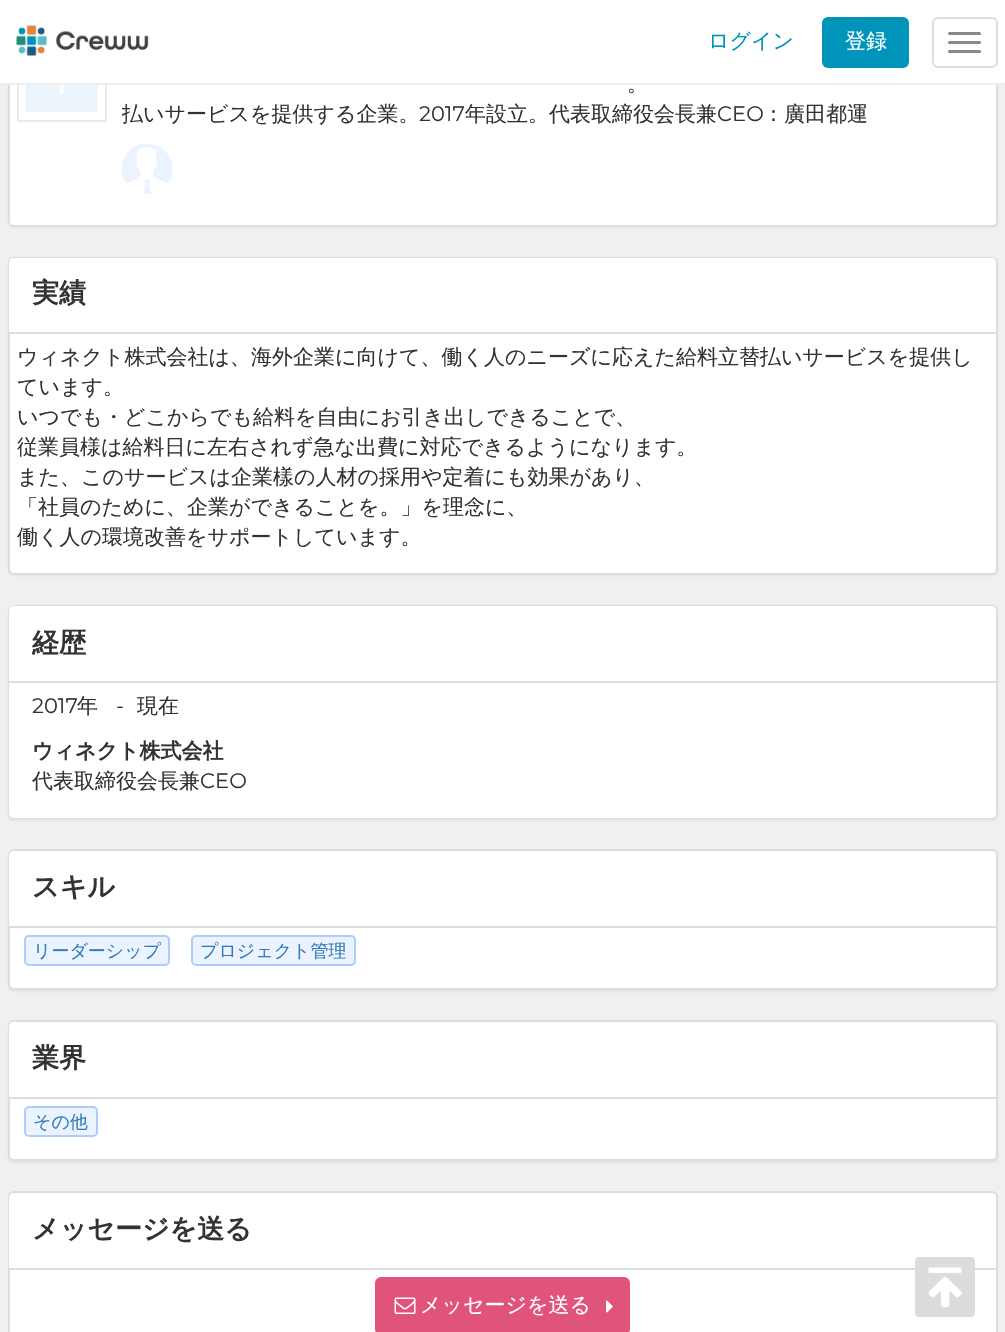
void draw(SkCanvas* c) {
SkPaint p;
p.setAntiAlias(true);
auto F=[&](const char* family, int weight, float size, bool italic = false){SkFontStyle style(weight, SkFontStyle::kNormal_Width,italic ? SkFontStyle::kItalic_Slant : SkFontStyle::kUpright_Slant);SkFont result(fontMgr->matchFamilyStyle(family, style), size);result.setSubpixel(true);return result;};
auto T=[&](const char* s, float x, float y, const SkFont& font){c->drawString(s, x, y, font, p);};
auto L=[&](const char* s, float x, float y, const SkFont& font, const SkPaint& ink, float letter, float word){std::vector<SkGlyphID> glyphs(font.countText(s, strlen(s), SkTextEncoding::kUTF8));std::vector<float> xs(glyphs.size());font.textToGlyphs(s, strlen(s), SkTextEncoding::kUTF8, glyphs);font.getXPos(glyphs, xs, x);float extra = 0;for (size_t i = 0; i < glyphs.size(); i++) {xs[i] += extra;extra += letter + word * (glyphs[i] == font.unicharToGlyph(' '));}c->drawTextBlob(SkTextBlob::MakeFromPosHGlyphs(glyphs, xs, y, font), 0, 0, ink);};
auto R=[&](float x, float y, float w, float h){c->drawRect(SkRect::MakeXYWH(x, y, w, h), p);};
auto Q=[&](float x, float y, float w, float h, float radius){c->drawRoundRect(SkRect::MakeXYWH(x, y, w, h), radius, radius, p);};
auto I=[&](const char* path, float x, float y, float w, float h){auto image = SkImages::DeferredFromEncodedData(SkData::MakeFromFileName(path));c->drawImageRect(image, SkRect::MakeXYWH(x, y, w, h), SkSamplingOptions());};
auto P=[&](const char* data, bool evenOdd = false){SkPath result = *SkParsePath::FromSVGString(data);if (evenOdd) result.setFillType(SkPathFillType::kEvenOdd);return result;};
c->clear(0xfff0f0f0);
p.setColor(0x0d000000);
p.setMaskFilter(SkMaskFilter::MakeBlur(kNormal_SkBlurStyle, 1));
c->drawRoundRect(SkRect::MakeXYWH(8,-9,990,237),6,6,p);
p.setMaskFilter(nullptr);
p.setColor(0xffffffff);
c->drawRoundRect(SkRect::MakeXYWH(9,-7,988,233),5,5,p);
p.setStroke(true);
p.setStrokeWidth(2);
p.setColor(0xffdddddd);
c->drawRoundRect(SkRect::MakeXYWH(9,-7,988,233),5,5,p);
p.setColor(0xffeaeaea);
c->drawRect(SkRect::MakeXYWH(18,33,88,88),p);
p.setStroke(false);
p.setColor(0xffffffff);
R(0,0,1005,83);
p.setColor(0xffeeeeee);
R(0,83,1005,2);
I("1.png",16,25,133,31);
auto f1 = F("WenQuanYi Zen Hei",500,21);
p.setColor(0xff0094bb);
T("ログイン",708,48,f1);
Q(822,17,87,51,6);
p.setColor(0xffffffff);
T("登録",845,48,f1);
p.setStroke(true);
p.setColor(0xffdddddd);
c->drawRoundRect(SkRect::MakeXYWH(933,18,64,49),5,5,p);
p.setStroke(false);
p.setColor(0xff888888);
Q(948,32,33,3,1.5);
Q(948,41,33,3,1.5);
Q(948,50,33,3,1.5);
I("2.png",25,85,73,27);
p.setColor(0xff333333);
L("。",627,91,f1,p,0,-1);
c->save();
c->clipRect(SkRect::MakeXYWH(122,32,867,163));
T("払いサービスを提供する企業。",122,121,f1);
c->restore();
auto f2 = F("Montserrat",400,21);
T("2017",419,121,f2);
T("年設立。代表取締役会長兼",465,121,f1);
T("CEO",717,121,f2);
T("：廣田都運",763,121,f1);
I("3.png",121,143,51,52);
p.setColor(0x0d000000);
p.setMaskFilter(SkMaskFilter::MakeBlur(kNormal_SkBlurStyle, 1));
c->drawRoundRect(SkRect::MakeXYWH(8,258,990,318),6,6,p);
p.setMaskFilter(nullptr);
p.setColor(0xffffffff);
c->drawRoundRect(SkRect::MakeXYWH(9,258,988,316),5,5,p);
p.setStroke(true);
p.setColor(0xffdddddd);
c->drawRoundRect(SkRect::MakeXYWH(9,258,988,316),5,5,p);
p.setStroke(false);
p.setColor(0xffffffff);
c->drawPath(P("M14 258h977c3 0 5 2 5 5v70h-987v-70c0-3 2-5 5-5z"),p);
p.setColor(0xffdddddd);
R(9,332,987,2);
auto f3 = F("WenQuanYi Zen Hei",700,27);
p.setColor(0xff333333);
T("実績",32,302,f3);
T("ウィネクト株式会社は、海外企業に向けて、働く人のニーズに応えた給料立替払いサービスを提供し",17,364,f1);
T("ています。",17,394,f1);
T("いつでも・どこからでも給料を自由にお引き出しできることで、",17,424,f1);
T("従業員様は給料日に左右されず急な出費に対応できるようになります。",17,454,f1);
T("また、このサービスは企業樣の人材の採用や定着にも効果があり、",17,484,f1);
T("「社員のために、企業ができることを。」を理念に、",17,514,f1);
T("働く人の環境改善をサポートしています。",17,544,f1);
p.setColor(0x0d000000);
p.setMaskFilter(SkMaskFilter::MakeBlur(kNormal_SkBlurStyle, 1));
c->drawRoundRect(SkRect::MakeXYWH(8,606,990,215),6,6,p);
p.setMaskFilter(nullptr);
p.setStroke(true);
p.setColor(0xffdddddd);
c->drawRoundRect(SkRect::MakeXYWH(9,606,988,212),5,5,p);
p.setStroke(false);
p.setColor(0xffffffff);
c->drawPath(P("M14 606h977c3 0 5 2 5 5v72h-987v-72c0-3 2-5 5-5z"),p);
p.setColor(0xffdddddd);
R(9,681,987,2);
p.setColor(0xff333333);
T("経歴",32,652,f3);
p.setColor(0xffffffff);
c->drawPath(P("M9 683h987v130c0 3-2 5-5 5h-977c-3 0-5-2-5-5z"),p);
p.setColor(0xff333333);
T("2017",32,713,f2);
T("年",77,713,f1);
T("-",116,713,f2);
T("現在",137,713,f1);
auto f4 = F("WenQuanYi Zen Hei",700,21);
T("ウィネクト株式会社",32,758,f4);
T("代表取締役会長兼",32,788,f1);
T("CEO",200,788,f2);
p.setColor(0x0d000000);
p.setMaskFilter(SkMaskFilter::MakeBlur(kNormal_SkBlurStyle, 1));
c->drawRoundRect(SkRect::MakeXYWH(8,851,990,141),6,6,p);
p.setMaskFilter(nullptr);
p.setColor(0xffffffff);
c->drawRoundRect(SkRect::MakeXYWH(9,850,988,139),5,5,p);
p.setStroke(true);
p.setColor(0xffdddddd);
c->drawRoundRect(SkRect::MakeXYWH(9,850,988,139),5,5,p);
p.setStroke(false);
p.setColor(0xffffffff);
c->drawPath(P("M14 851h977c3 0 5 2 5 5v71h-987v-71c0-3 2-5 5-5z"),p);
p.setColor(0xffdddddd);
R(9,926,987,2);
p.setColor(0xff333333);
T("スキル",32,896,f3);
p.setColor(0xffeaf3ff);
c->drawRoundRect(SkRect::MakeXYWH(25,936,144,29),4,4,p);
p.setStroke(true);
p.setColor(0xffaecdfe);
c->drawRoundRect(SkRect::MakeXYWH(25,936,144,29),4,4,p);
auto f5 = F("WenQuanYi Zen Hei",500,18);
p.setStroke(false);
p.setColor(0xff337ab7);
T("リーダーシップ",33,957,f5);
p.setColor(0xffeaf3ff);
c->drawRoundRect(SkRect::MakeXYWH(192,936,163,29),4,4,p);
p.setStroke(true);
p.setColor(0xffaecdfe);
c->drawRoundRect(SkRect::MakeXYWH(192,936,163,29),4,4,p);
p.setStroke(false);
p.setColor(0xff337ab7);
T("プロジェクト管理",200,957,f5);
p.setColor(0x0d000000);
p.setMaskFilter(SkMaskFilter::MakeBlur(kNormal_SkBlurStyle, 1));
c->drawRoundRect(SkRect::MakeXYWH(8,1022,990,141),6,6,p);
p.setMaskFilter(nullptr);
p.setColor(0xffffffff);
c->drawRoundRect(SkRect::MakeXYWH(9,1021,988,139),5,5,p);
p.setStroke(true);
p.setColor(0xffdddddd);
c->drawRoundRect(SkRect::MakeXYWH(9,1021,988,139),5,5,p);
p.setStroke(false);
p.setColor(0xffffffff);
c->drawPath(P("M14 1022h977c3 0 5 2 5 5v71h-987v-71c0-3 2-5 5-5z"),p);
p.setColor(0xffdddddd);
R(9,1097,987,2);
p.setColor(0xff333333);
T("業界",32,1067,f3);
p.setColor(0xffeaf3ff);
c->drawRoundRect(SkRect::MakeXYWH(25,1107,72,29),4,4,p);
p.setStroke(true);
p.setColor(0xffaecdfe);
c->drawRoundRect(SkRect::MakeXYWH(25,1107,72,29),4,4,p);
p.setStroke(false);
p.setColor(0xff337ab7);
T("その他",33,1128,f5);
p.setColor(0xffffffff);
c->drawRoundRect(SkRect::MakeXYWH(9,1192,988,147),5,5,p);
p.setStroke(true);
p.setColor(0xffdddddd);
c->drawRoundRect(SkRect::MakeXYWH(9,1192,988,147),5,5,p);
p.setStroke(false);
p.setColor(0xffffffff);
c->drawPath(P("M14 1193h977c3 0 5 2 5 5v71h-987v-71c0-3 2-5 5-5z"),p);
p.setColor(0xffdddddd);
R(9,1268,987,2);
p.setColor(0xff333333);
T("メッセージを送る",32,1238,f3);
p.setColor(0xffe0547b);
c->drawRoundRect(SkRect::MakeXYWH(376,1278,253,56),5,5,p);
p.setStroke(true);
c->drawRoundRect(SkRect::MakeXYWH(376,1278,253,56),5,5,p);
I("4.png",394,1297,22,17);
p.setStroke(false);
p.setColor(0xffffffff);
T("メッセージを送る",420,1312,f1);
I("5.png",606,1300,7,13);
I("6.png",915,1257,60,60);
}
